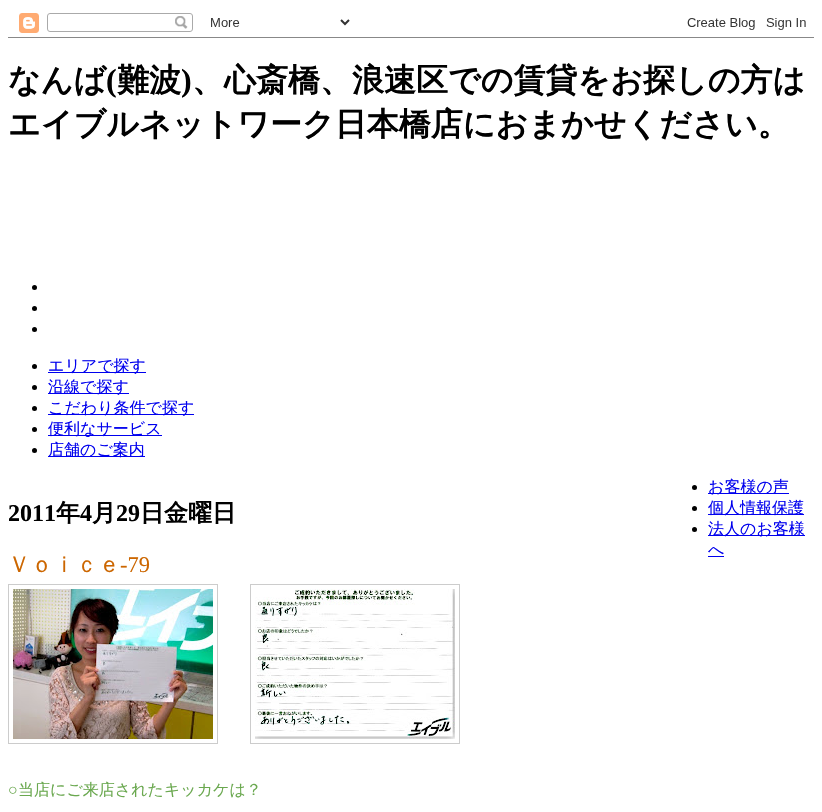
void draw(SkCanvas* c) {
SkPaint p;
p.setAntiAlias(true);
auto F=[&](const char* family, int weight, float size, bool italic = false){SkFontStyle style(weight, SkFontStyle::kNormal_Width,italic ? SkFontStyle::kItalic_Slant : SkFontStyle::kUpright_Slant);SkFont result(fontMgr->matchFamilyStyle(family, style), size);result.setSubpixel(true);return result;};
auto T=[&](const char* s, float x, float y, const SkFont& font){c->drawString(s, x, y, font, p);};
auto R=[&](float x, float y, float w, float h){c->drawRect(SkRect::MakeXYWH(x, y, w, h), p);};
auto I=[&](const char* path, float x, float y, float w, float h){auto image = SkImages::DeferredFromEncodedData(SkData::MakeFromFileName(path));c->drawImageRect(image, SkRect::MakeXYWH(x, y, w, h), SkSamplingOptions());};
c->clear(0xffffffff);
I("1.png",8,13,806,25);
auto f1 = F("WenQuanYi Zen Hei",700,32);
p.setColor(0xff000000);
T("なんば",8,91,f1);
auto f2 = F("Liberation Serif",700,32);
T("(",106,91,f2);
T("難波",117,91,f1);
T(")",181,91,f2);
T("、心斎橋、浪速区での賃貸をお探しの方は",192,91,f1);
T("エイブルネットワーク日本橋店におまかせください。",8,135,f1);
c->drawCircle(34.5,287.5,2.5,p);
c->drawCircle(34.5,308.5,2.5,p);
c->drawCircle(34.5,329.5,2.5,p);
c->drawCircle(34.5,366.5,2.5,p);
p.setColor(0xff0000ee);
R(48,372,98,1);
auto f3 = F("WenQuanYi Zen Hei",500,16);
T("エリアで探す",48,371,f3);
p.setColor(0xff000000);
c->drawCircle(34.5,387.5,2.5,p);
p.setColor(0xff0000ee);
R(48,393,81,1);
T("沿線で探す",48,392,f3);
p.setColor(0xff000000);
c->drawCircle(34.5,408.5,2.5,p);
p.setColor(0xff0000ee);
R(48,414,146,1);
T("こだわり条件で探す",48,413,f3);
p.setColor(0xff000000);
c->drawCircle(34.5,429.5,2.5,p);
p.setColor(0xff0000ee);
R(48,435,114,1);
T("便利なサービス",48,434,f3);
p.setColor(0xff000000);
c->drawCircle(34.5,450.5,2.5,p);
p.setColor(0xff0000ee);
R(48,456,97,1);
T("店舗のご案内",48,455,f3);
auto f4 = F("Liberation Serif",700,24);
p.setColor(0xff000000);
T("2011",8,521,f4);
auto f5 = F("WenQuanYi Zen Hei",700,24);
T("年",56,521,f5);
T("4",80,521,f4);
T("月",92,521,f5);
T("29",116,521,f4);
T("日金曜日",140,521,f5);
auto f6 = F("WenQuanYi Zen Hei",500,22.5);
p.setColor(0xffcc6600);
T("Ｖｏｉｃｅ",8,572,f6);
auto f7 = F("Liberation Serif",400,22.5);
T("-79",120,572,f7);
p.setStroke(true);
p.setStrokeWidth(1);
p.setColor(0xffcccccc);
c->drawRect(SkRect::MakeXYWH(8.5,584.5,209,159),p);
I("2.png",13,589,200,150);
c->drawRect(SkRect::MakeXYWH(250.5,584.5,209,159),p);
I("3.png",255,589,200,150);
auto f8 = F("Liberation Serif",400,16);
p.setStroke(false);
p.setColor(0xff6aa84f);
T("○",8,795,f8);
T("当店にご来店されたキッカケは？",18,795,f3);
p.setColor(0xff000000);
c->drawCircle(694.5,487.5,2.5,p);
p.setColor(0xff0000ee);
R(708,493,81,1);
T("お客様の声",708,492,f3);
p.setColor(0xff000000);
c->drawCircle(694.5,508.5,2.5,p);
p.setColor(0xff0000ee);
R(708,514,96,1);
T("個人情報保護",708,513,f3);
p.setColor(0xff000000);
c->drawCircle(694.5,529.5,2.5,p);
p.setColor(0xff0000ee);
R(708,535,97,1);
T("法人のお客様",708,534,f3);
T("へ",708,555,f3);
R(708,556,16,1);
}
